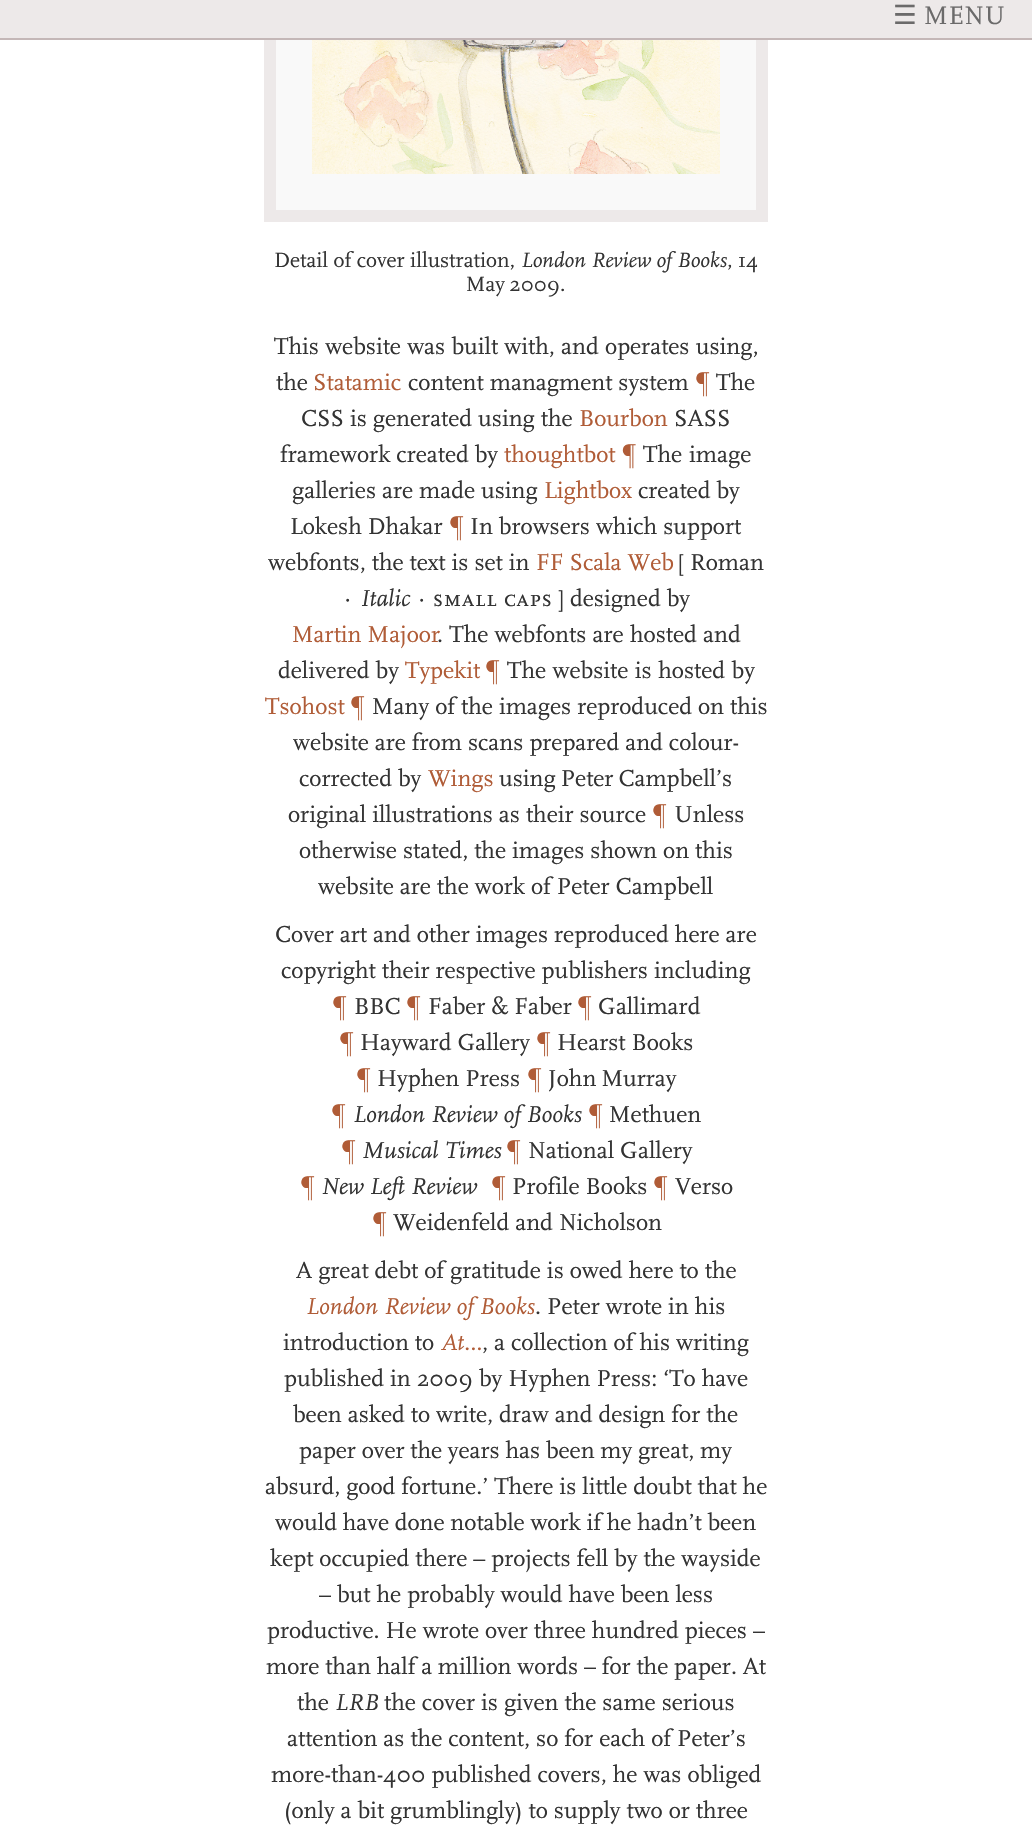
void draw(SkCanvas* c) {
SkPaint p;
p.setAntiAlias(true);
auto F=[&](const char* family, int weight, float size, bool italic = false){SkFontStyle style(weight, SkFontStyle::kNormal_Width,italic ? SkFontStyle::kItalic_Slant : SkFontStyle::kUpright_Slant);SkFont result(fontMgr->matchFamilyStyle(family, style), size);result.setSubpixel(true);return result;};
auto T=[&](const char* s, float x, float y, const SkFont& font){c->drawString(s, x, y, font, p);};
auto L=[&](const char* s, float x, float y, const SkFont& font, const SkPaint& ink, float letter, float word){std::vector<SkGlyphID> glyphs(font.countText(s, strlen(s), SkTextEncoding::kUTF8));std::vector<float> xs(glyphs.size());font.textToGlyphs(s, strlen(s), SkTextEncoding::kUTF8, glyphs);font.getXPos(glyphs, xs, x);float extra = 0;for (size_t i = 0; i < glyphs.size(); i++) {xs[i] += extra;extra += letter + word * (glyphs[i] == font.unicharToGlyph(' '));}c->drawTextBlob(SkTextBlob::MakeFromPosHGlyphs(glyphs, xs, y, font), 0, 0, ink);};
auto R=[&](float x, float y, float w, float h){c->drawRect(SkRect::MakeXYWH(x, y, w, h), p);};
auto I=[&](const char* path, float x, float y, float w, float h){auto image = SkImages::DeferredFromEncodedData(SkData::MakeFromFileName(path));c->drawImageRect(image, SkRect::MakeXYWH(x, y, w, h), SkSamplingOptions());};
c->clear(0xffffffff);
p.setColor(0xfff9f9f9);
R(276,40,480,170);
p.setStroke(true);
p.setStrokeWidth(12);
p.setColor(0xffede9e9);
c->drawRect(SkRect::MakeXYWH(270,-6,492,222),p);
p.setStroke(false);
R(0,0,1032,38);
p.setColor(0xffc4b7b7);
R(0,38,1032,2);
auto f1 = F("DejaVu Sans",400,26.5);
p.setColor(0xff6b6a6a);
L("☰",893,24,f1,p,.5,0);
auto f2 = F("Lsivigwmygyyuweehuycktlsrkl",400,26.5);
L("MENU",924,24,f2,p,.5,0);
I("1.png",312,40,408,134);
auto f3 = F("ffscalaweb",400,21.6);
p.setColor(0xff333333);
T("Detail of cover illustration,",274,267,f3);
auto f4 = F("ffscalaweb",400,21.6,true);
T("London Review of Books",521,267,f4);
T(", 14",727,267,f3);
L("May 2009.",466,291,f3,p,0,-1);
auto f5 = F("ffscalaweb",400,24);
L("This website was built with, and operates using,",274,354,f5,p,0,.25);
T("the",276,390,f5);
p.setColor(0xffb05c37);
T("Statamic",313,390,f5);
p.setColor(0xff333333);
T("content managment system",408,390,f5);
p.setColor(0xffb05c37);
T("¶",695,390,f5);
p.setColor(0xff333333);
T("The",716,390,f5);
T("CSS is generated using the",301,426,f5);
p.setColor(0xffb05c37);
T("Bourbon",579,426,f5);
p.setColor(0xff333333);
T("SASS",674,426,f5);
T("framework created by",280,462,f5);
p.setColor(0xffb05c37);
T("thoughtbot ¶",504,462,f5);
p.setColor(0xff333333);
L("The image",643,462,f5,p,0,1);
T("galleries are made using",292,498,f5);
p.setColor(0xffb05c37);
T("Lightbox",544,498,f5);
p.setColor(0xff333333);
T("created by",638,498,f5);
T("Lokesh Dhakar",290,534,f5);
p.setColor(0xffb05c37);
T("¶",449,534,f5);
p.setColor(0xff333333);
T("In browsers which support",470,534,f5);
T("webfonts, the text is set in",268,570,f5);
p.setColor(0xffb05c37);
T("FF Scala Web",536,570,f5);
p.setColor(0xff333333);
T("[ Roman",678,570,f5);
T("·",342,606,f5);
auto f6 = F("ffscalaweb",400,24,true);
T("Italic",360,606,f6);
T("·",416,606,f5);
auto f7 = F("Lsivigwmygyyuweehuycktlsrkl",400,24);
L("small caps",433,606,f7,p,.75,0);
T("] designed by",558,606,f5);
p.setColor(0xffb05c37);
T("Martin Majoor",292,642,f5);
p.setColor(0xff333333);
L(". The webfonts are hosted and",437,642,f5,p,0,.25);
T("delivered by",278,678,f5);
p.setColor(0xffb05c37);
T("Typekit",405,678,f5);
T("¶",485,678,f5);
p.setColor(0xff333333);
L("The website is hosted by",507,678,f5,p,0,.5);
p.setColor(0xffb05c37);
T("Tsohost",265,714,f5);
T("¶",350,714,f5);
p.setColor(0xff333333);
T("Many of the images reproduced on this",372,714,f5);
T("website are from scans prepared and colour-",293,750,f5);
T("corrected by",299,786,f5);
p.setColor(0xffb05c37);
T("Wings",428,786,f5);
p.setColor(0xff333333);
L("using Peter Campbell’s",499,786,f5,p,0,-1);
T("original illustrations as their source",288,822,f5);
p.setColor(0xffb05c37);
T("¶",652,822,f5);
p.setColor(0xff333333);
T("Unless",674,822,f5);
T("otherwise stated, the images shown on this",299,858,f5);
T("website are the work of Peter Campbell",318,894,f5);
T("Cover art and other images reproduced here are",275,942,f5);
T("copyright their respective publishers including",281,978,f5);
p.setColor(0xffb05c37);
T("¶",332,1014,f5);
p.setColor(0xff333333);
T("BBC",354,1014,f5);
p.setColor(0xffb05c37);
T("¶",406,1014,f5);
p.setColor(0xff333333);
T("Faber & Faber",428,1014,f5);
p.setColor(0xffb05c37);
T("¶",577,1014,f5);
p.setColor(0xff333333);
T("Gallimard",598,1014,f5);
p.setColor(0xffb05c37);
T("¶",339,1050,f5);
p.setColor(0xff333333);
T("Hayward Gallery",360,1050,f5);
p.setColor(0xffb05c37);
T("¶",536,1050,f5);
p.setColor(0xff333333);
T("Hearst Books",557,1050,f5);
p.setColor(0xffb05c37);
T("¶",356,1086,f5);
p.setColor(0xff333333);
T("Hyphen Press",377,1086,f5);
p.setColor(0xffb05c37);
T("¶",527,1086,f5);
p.setColor(0xff333333);
L("John Murray",548,1086,f5,p,0,-1);
p.setColor(0xffb05c37);
T("¶",331,1122,f5);
p.setColor(0xff333333);
T("London Review of Books",353,1122,f6);
p.setColor(0xffb05c37);
T("¶",588,1122,f5);
p.setColor(0xff333333);
T("Methuen",609,1122,f5);
p.setColor(0xffb05c37);
T("¶",341,1158,f5);
p.setColor(0xff333333);
T("Musical Times",362,1158,f6);
p.setColor(0xffb05c37);
T("¶",506,1158,f5);
p.setColor(0xff333333);
T("National Gallery",528,1158,f5);
p.setColor(0xffb05c37);
T("¶",300,1194,f5);
p.setColor(0xff333333);
T("New Left Review",321,1194,f6);
p.setColor(0xffb05c37);
T("¶",491,1194,f5);
p.setColor(0xff333333);
T("Profile Books",512,1194,f5);
p.setColor(0xffb05c37);
T("¶",653,1194,f5);
p.setColor(0xff333333);
T("Verso",675,1194,f5);
p.setColor(0xffb05c37);
T("¶",372,1230,f5);
p.setColor(0xff333333);
T("Weidenfeld and Nicholson",393,1230,f5);
T("A great debt of gratitude is owed here to the",296,1278,f5);
p.setColor(0xffb05c37);
T("London Review of Books",306,1314,f6);
p.setColor(0xff333333);
T(". Peter wrote in his",535,1314,f5);
T("introduction to",283,1350,f5);
p.setColor(0xffb05c37);
T("At…",441,1350,f6);
p.setColor(0xff333333);
T(", a collection of his writing",482,1350,f5);
T("published in 2009 by Hyphen Press: ‘To have",284,1386,f5);
T("been asked to write, draw and design for the",293,1422,f5);
L("paper over the years has been my great, my",299,1458,f5,p,0,-.25);
T("absurd, good fortune.’ There is little doubt that he",265,1494,f5);
L("would have done notable work if he hadn’t been",275,1530,f5,p,0,-.25);
T("kept occupied there – projects fell by the wayside",270,1566,f5);
T("– but he probably would have been less",319,1602,f5);
T("productive. He wrote over three hundred pieces –",267,1638,f5);
L("more than half a million words – for the paper. At",266,1674,f5,p,0,-.25);
T("the",297,1710,f5);
T("LRB",335,1710,f6);
T("the cover is given the same serious",384,1710,f5);
T("attention as the content, so for each of Peter’s",287,1746,f5);
T("more-than-400 published covers, he was obliged",271,1782,f5);
T("(only a bit grumblingly) to supply two or three",284,1818,f5);
}
